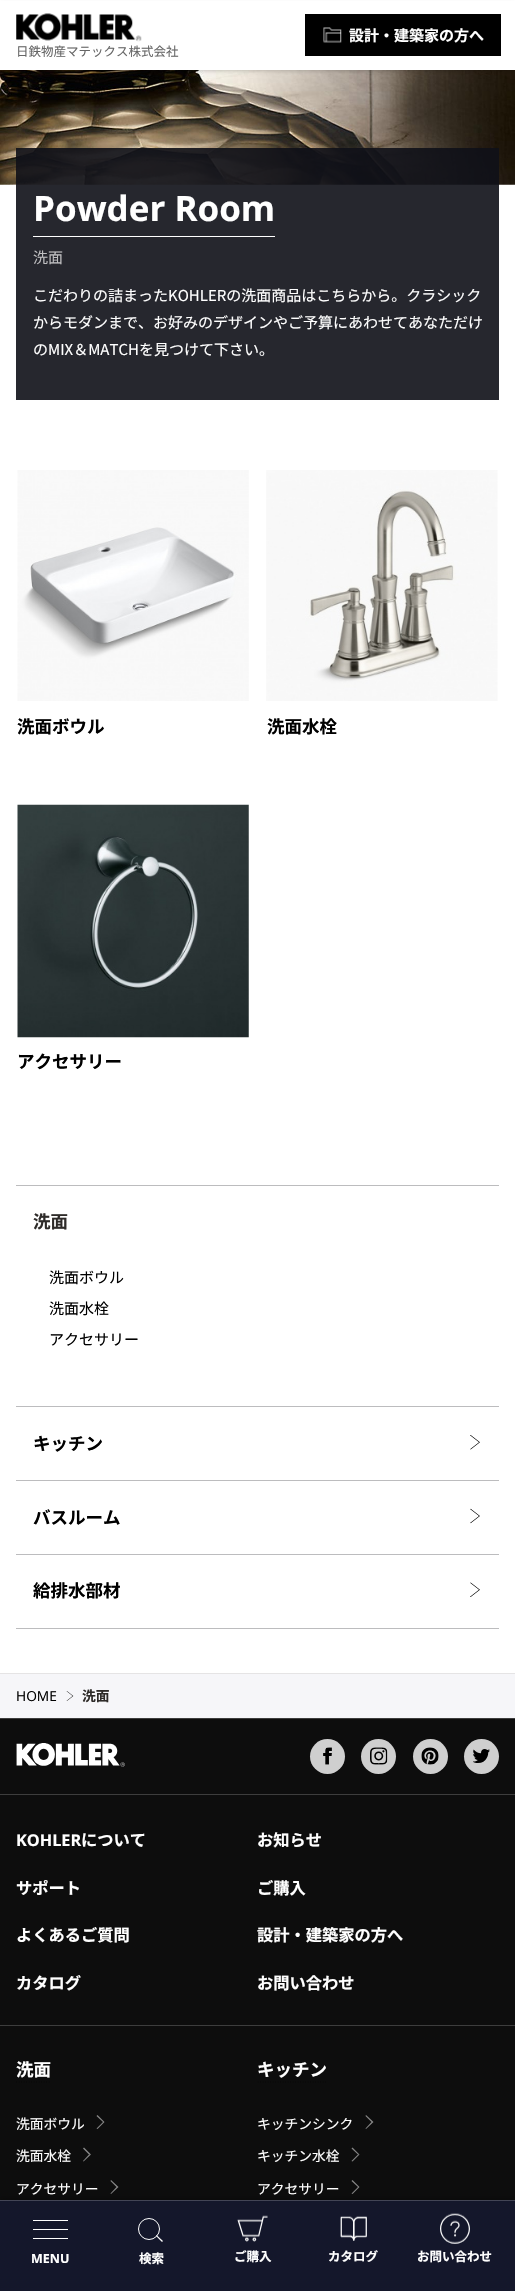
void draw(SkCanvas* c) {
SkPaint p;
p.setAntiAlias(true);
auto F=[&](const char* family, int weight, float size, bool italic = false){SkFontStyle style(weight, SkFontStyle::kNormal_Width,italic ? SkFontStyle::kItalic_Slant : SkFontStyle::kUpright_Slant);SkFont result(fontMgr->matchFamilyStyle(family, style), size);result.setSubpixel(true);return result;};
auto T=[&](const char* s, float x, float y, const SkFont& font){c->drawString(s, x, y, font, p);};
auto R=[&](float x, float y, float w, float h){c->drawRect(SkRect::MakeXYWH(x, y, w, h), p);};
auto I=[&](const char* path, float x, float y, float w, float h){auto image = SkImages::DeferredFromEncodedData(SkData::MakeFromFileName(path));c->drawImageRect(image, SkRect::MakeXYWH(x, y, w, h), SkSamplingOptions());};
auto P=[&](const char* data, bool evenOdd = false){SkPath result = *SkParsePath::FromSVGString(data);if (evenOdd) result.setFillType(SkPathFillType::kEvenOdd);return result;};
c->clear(0xffffffff);
I("6.png",0,70,515,115);
p.setColor(0x33000000);
p.setMaskFilter(SkMaskFilter::MakeBlur(kNormal_SkBlurStyle, 2));
c->drawRect(SkRect::MakeXYWH(1,4,513,67),p);
p.setMaskFilter(nullptr);
p.setColor(0xffffffff);
R(0,1,515,69);
p.setColor(0xff000000);
R(305,14,196,42);
I("1.png",323,27,19,16);
auto f1 = F("Noto Sans JP",700,15);
p.setColor(0xffffffff);
T("設計・建築家の方へ",349,41,f1);
p.setColor(0xff0d0d0d);
R(0,2026,515,174);
p.setColor(0xff868686);
c->drawPath(P("M111 2180l7.5 7h-2l-6-6zm7.5 7l-7.5 7l-.5-.5l6-6.5z"),p);
c->drawPath(P("M352.5 2180l7 7h-1.5l-6.5-6zm7 7l-7 7l-1-.5l6.5-6.5z"),p);
p.setColor(0x33000000);
p.setMaskFilter(SkMaskFilter::MakeBlur(kNormal_SkBlurStyle, 2));
c->drawRect(SkRect::MakeXYWH(0,2198,515,91),p);
p.setMaskFilter(nullptr);
p.setColor(0xff14172b);
R(0,2201,515,90);
p.setColor(0xff434555);
R(0,2200,515,1);
p.setColor(0xffffffff);
R(33,2220,35,1);
R(33,2229,35,1);
R(33,2238,35,1);
auto f2 = F("Open Sans",700,12.5);
T("MENU",31,2263,f2);
p.setStroke(true);
p.setStrokeWidth(1);
c->drawCircle(149,2229,10.5,p);
p.setStroke(false);
c->drawPath(P("M156.5 2235l6.5 6l-1 1l-6-6z"),p);
auto f3 = F("Noto Sans JP",700,12.5);
T("検索",139,2263,f3);
I("2.png",237,2215,31,27);
T("ご購入",234,2261,f3);
I("3.png",340,2216,27,25);
T("カタログ",328,2261,f3);
I("4.png",440,2213,30,31);
T("お問い合わせ",417,2261,f3);
I("5.png",16,13,126,29);
auto f4 = F("Noto Sans JP",400,12.5);
p.setColor(0xff666666);
T("日鉄物産マテックス株式会社",16,56,f4);
p.setColor(0xe60e0f17);
R(16,148,483,252);
auto f5 = F("Open Sans",700,35);
p.setColor(0xffffffff);
T("Powder Room",33,221,f5);
R(33,236,242,1);
auto f6 = F("Noto Sans JP",400,15);
p.setColor(0xffbebec0);
T("洗面",33,263,f6);
p.setColor(0xffffffff);
T("こだわりの詰まったKOHLERの洗面商品はこちらから。クラシック",33,301,f6);
T("からモダンまで、お好みのデザインやご予算にあわせてあなただけ",33,328,f6);
T("のMIX＆MATCHを見つけて下さい。",33,355,f6);
I("7.png",17,470,232,231);
auto f7 = F("Noto Sans JP",700,17.5);
p.setColor(0xff000000);
T("洗面ボウル",17,733,f7);
I("8.png",266,470,232,231);
T("洗面水栓",267,733,f7);
I("9.png",17,804,232,234);
T("アクセサリー",17,1068,f7);
p.setColor(0xffbcbcbe);
R(16,1185,483,1);
R(16,1406,483,1);
p.setColor(0xff2e2b29);
T("洗面",33,1228,f7);
p.setColor(0xff000000);
T("洗面ボウル",49,1283,f6);
T("洗面水栓",49,1314,f6);
T("アクセサリー",49,1345,f6);
p.setColor(0xffbcbcbe);
R(16,1480,483,1);
p.setColor(0xff000000);
T("キッチン",33,1450,f7);
I("10.png",470,1435,10,15);
p.setColor(0xffbcbcbe);
R(16,1554,483,1);
p.setColor(0xff000000);
T("バスルーム",33,1524,f7);
I("11.png",470,1508,10,16);
p.setColor(0xffbcbcbe);
R(16,1628,483,1);
p.setColor(0xff000000);
T("給排水部材",33,1597,f7);
I("12.png",470,1582,10,15);
p.setColor(0xfff6f6f9);
R(0,1674,515,44);
p.setColor(0xffe5e4e5);
R(0,1673,515,1);
auto f8 = F("Open Sans",400,13.75);
p.setColor(0xff000000);
T("HOME",16,1701,f8);
I("13.png",66,1691,8,10);
auto f9 = F("Noto Sans JP",700,13.75);
p.setColor(0xff2e2b29);
T("洗面",82,1701,f9);
p.setColor(0xff0d0d0d);
R(0,1719,515,75);
p.setColor(0xff3d3d3d);
R(0,1718,515,1);
I("14.png",16,1743,109,24);
p.setColor(0xffcfcfcf);
c->drawCircle(327.5,1756.5,17.5,p);
I("15.png",323,1747,9,18);
c->drawCircle(378.5,1756.5,17.5,p);
I("16.png",370,1747,18,18);
c->drawCircle(430.5,1756.5,17.5,p);
I("17.png",421,1747,18,18);
c->drawCircle(481.5,1756.5,17.5,p);
I("18.png",473,1749,17,14);
p.setColor(0xff0d0d0d);
R(0,1795,515,230);
p.setColor(0xff3d3d3d);
R(0,1794,515,1);
auto f10 = F("Open Sans",700,16.25);
p.setColor(0xffffffff);
T("KOHLER",16,1846,f10);
auto f11 = F("Noto Sans JP",700,16.25);
T("について",81,1846,f11);
T("お知らせ",257,1846,f11);
T("サポート",16,1894,f11);
T("ご購入",257,1894,f11);
T("よくあるご質問",16,1941,f11);
T("設計・建築家の方へ",257,1941,f11);
T("カタログ",16,1989,f11);
T("お問い合わせ",257,1989,f11);
p.setColor(0xff3d3d3d);
R(0,2025,515,1);
p.setColor(0xffffffff);
T("洗面",16,2076,f7);
p.setStroke(true);
p.setStrokeWidth(1.2);
p.setColor(0xff070707);
p.setPathEffect(SkDashPathEffect::Make({{1.25f,1.25f}}, 0));
c->drawPath(P("M16 2082h35"),p);
p.setPathEffect(nullptr);
auto f12 = F("Noto Sans JP",400,13.75);
p.setStroke(false);
p.setColor(0xffffffff);
T("洗面ボウル",16,2129,f12);
p.setColor(0xff868686);
c->drawPath(P("M97.5 2115l7 7h-1.5l-6.5-6zm7 7l-7 7l-1-.5l6.5-6.5zm-20.5 25.5l7 7h-2l-6-6z"),p);
p.setColor(0xffffffff);
T("洗面水栓",16,2161,f12);
p.setColor(0x80ffffff);
c->drawPath(P("M91 2154.5l-7.5 7l-.5-.5l6-6.5z"),p);
p.setColor(0xffffffff);
T("アクセサリー",16,2194,f12);
T("キッチン",257,2076,f7);
p.setStroke(true);
p.setColor(0xff070707);
p.setPathEffect(SkDashPathEffect::Make({{1.25f,1.25f}}, 0));
c->drawPath(P("M257.5 2082h70"),p);
p.setPathEffect(nullptr);
p.setStroke(false);
p.setColor(0xffffffff);
T("キッチンシンク",257,2129,f12);
p.setColor(0xff868686);
c->drawPath(P("M366 2115l7.5 7h-2l-6-6zm7.5 7l-7.5 7l-.5-.5l6-6.5zm-21 25.5l7 7h-1.5l-6.5-6z"),p);
p.setColor(0xffffffff);
T("キッチン水栓",257,2161,f12);
p.setColor(0x80ffffff);
c->drawPath(P("M359.5 2154.5l-7 7l-1-.5l6.5-6.5z"),p);
p.setColor(0xffffffff);
T("アクセサリー",257,2194,f12);
}
